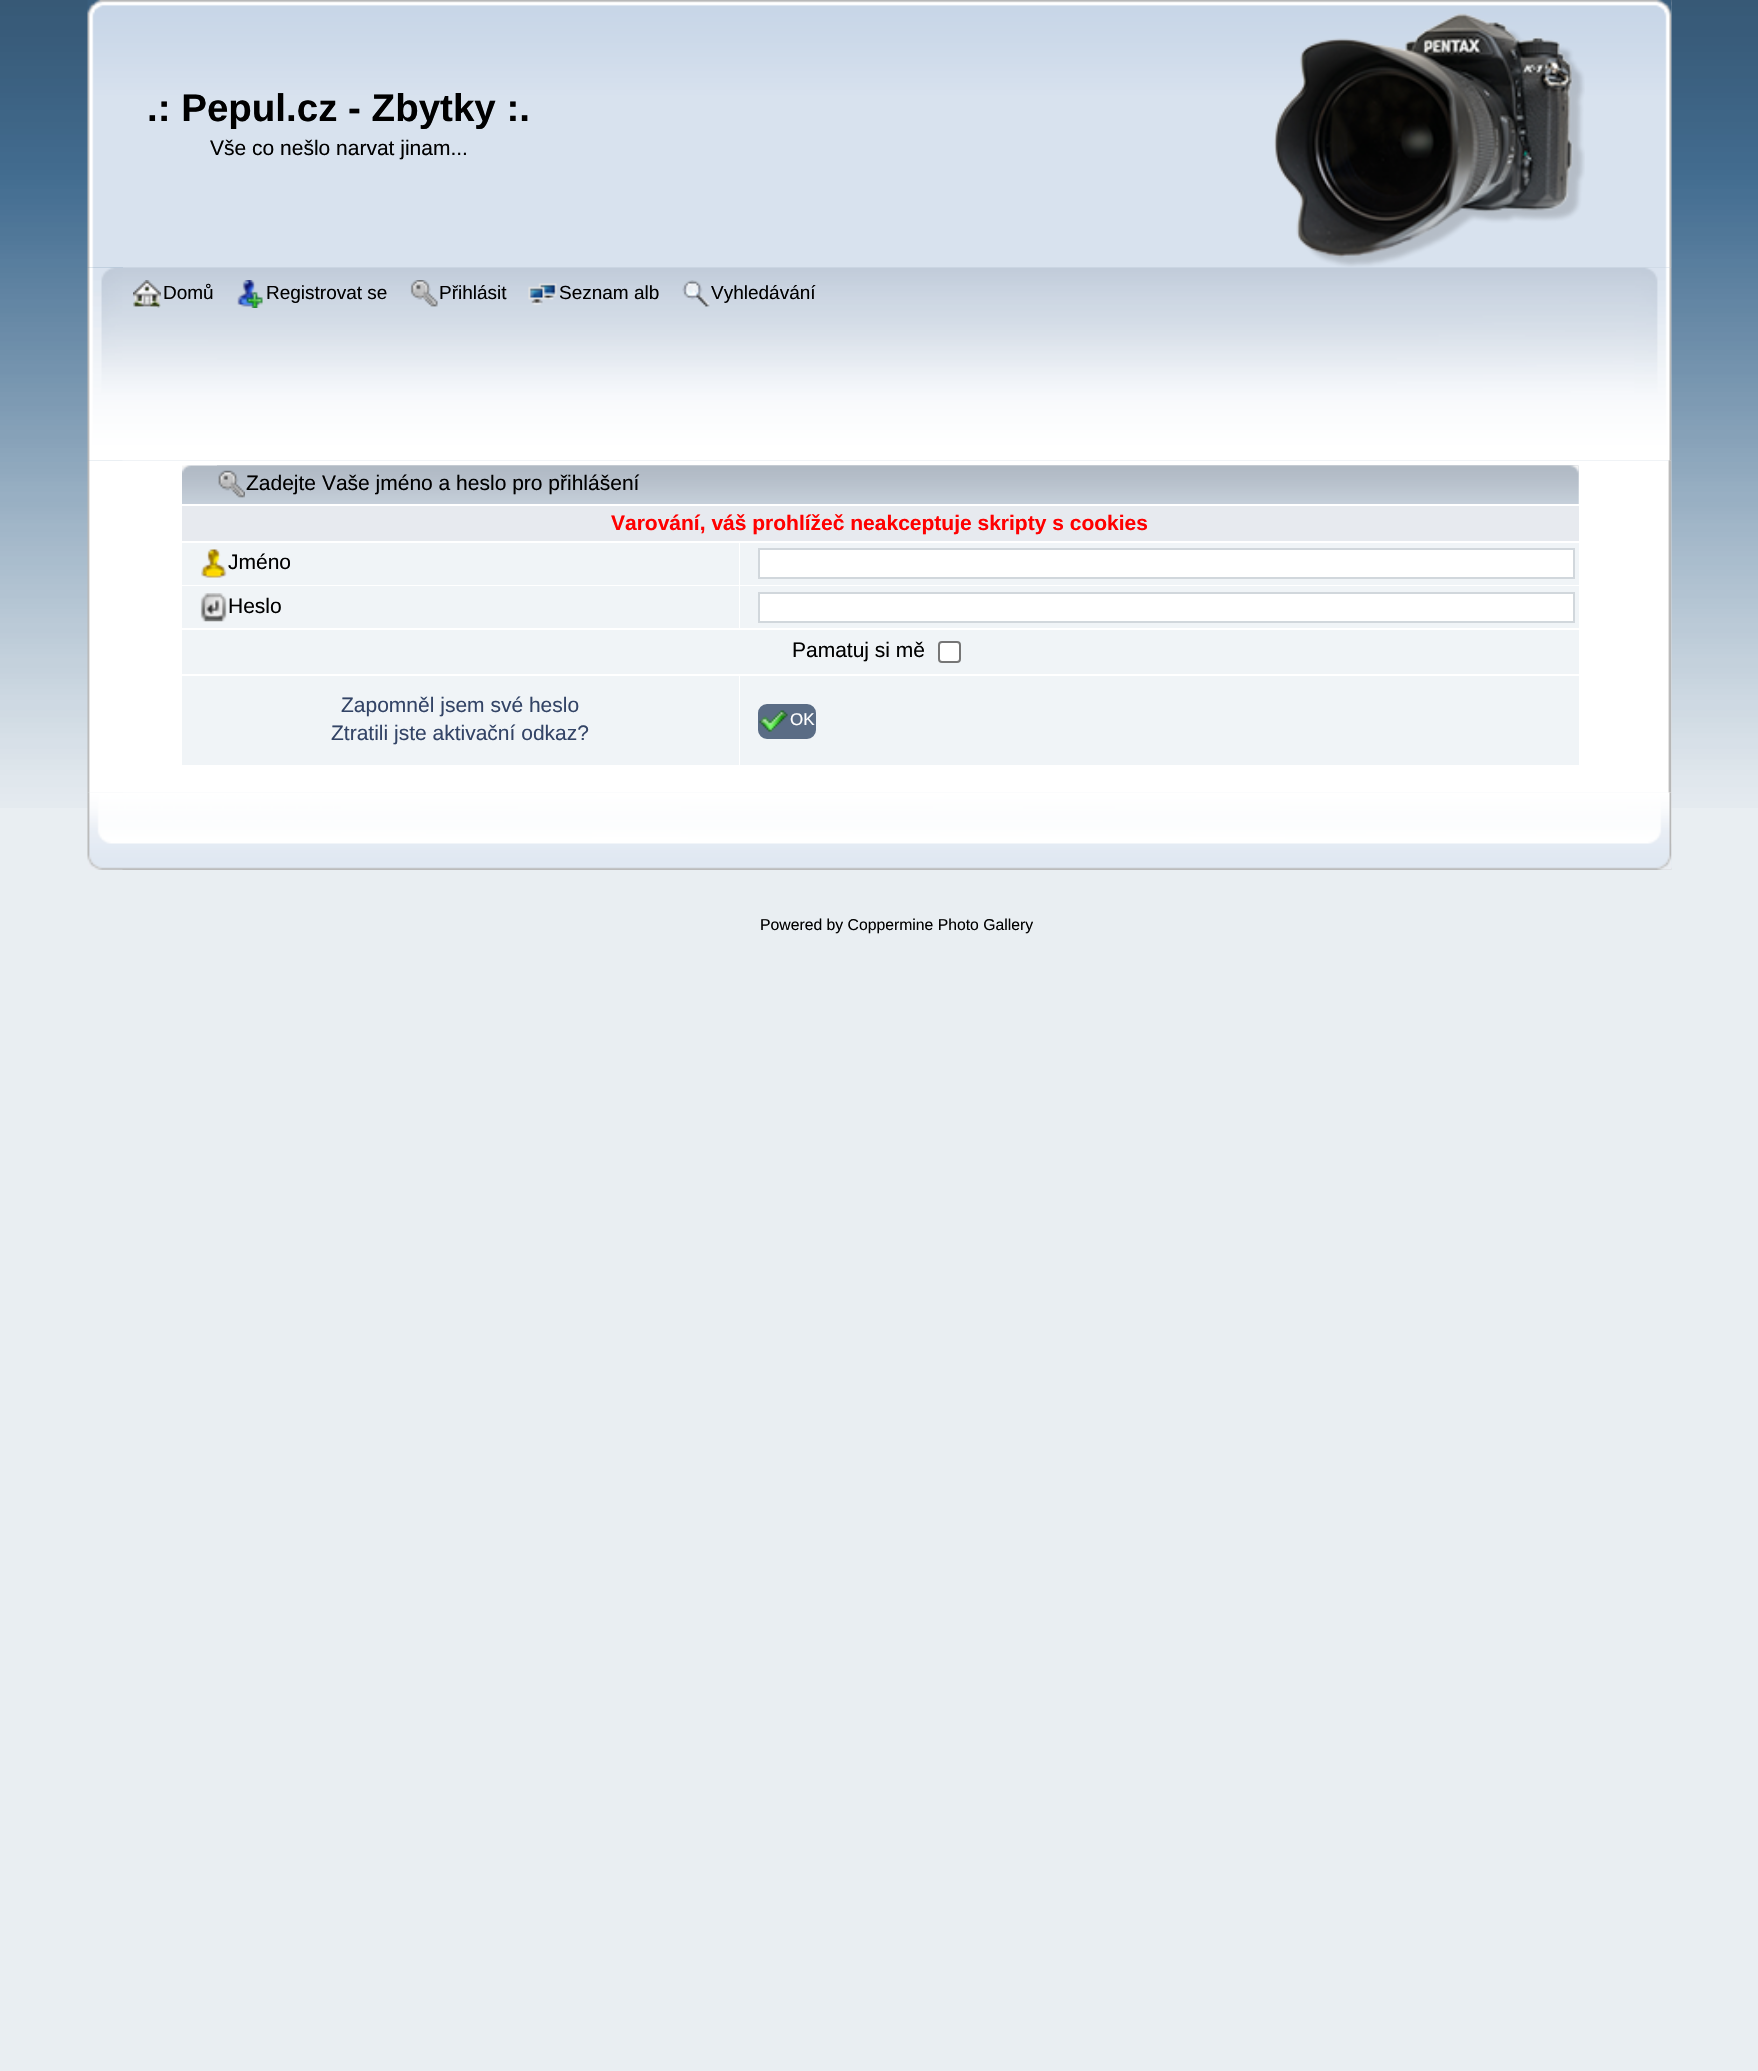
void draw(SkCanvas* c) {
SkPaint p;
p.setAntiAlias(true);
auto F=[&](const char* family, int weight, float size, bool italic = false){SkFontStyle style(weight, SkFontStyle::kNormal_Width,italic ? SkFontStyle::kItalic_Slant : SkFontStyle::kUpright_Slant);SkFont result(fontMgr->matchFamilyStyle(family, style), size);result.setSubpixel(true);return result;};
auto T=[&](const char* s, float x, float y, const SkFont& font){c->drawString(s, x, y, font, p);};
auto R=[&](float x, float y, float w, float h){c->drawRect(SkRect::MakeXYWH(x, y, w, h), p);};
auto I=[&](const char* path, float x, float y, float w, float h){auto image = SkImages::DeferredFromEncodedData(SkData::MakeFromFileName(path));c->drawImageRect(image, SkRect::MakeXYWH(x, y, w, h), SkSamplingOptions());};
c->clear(0xffe9eef2);
I("1.png",0,0,1758,808);
I("2.png",87,0,1585,268);
I("3.png",123,0,1549,268);
auto f1 = F("Liberation Sans",700,38.5);
p.setColor(0xff000000);
T(".: Pepul.cz - Zbytky :.",147,121,f1);
auto f2 = F("Liberation Sans",400,21);
T("Vše co nešlo narvat jinam...",210,155,f2);
I("4.png",1274,13,311,254);
I("5.png",87,267,1585,194);
I("6.png",122,267,1550,194);
I("7.png",133,280,28,28);
auto f3 = F("Liberation Sans",400,19);
T("Domů",163,299,f3);
I("8.png",237,280,26,28);
T("Registrovat se",266,299,f3);
I("9.png",410,280,28,27);
T("Přihlásit",439,299,f3);
I("10.png",528,283,29,22);
T("Seznam alb",559,299,f3);
I("11.png",682,280,28,27);
T("Vyhledávání",711,299,f3);
I("12.png",87,460,1585,333);
I("13.png",1668,460,4,333);
I("14.png",182,465,1397,39);
I("15.png",217,465,1362,39);
I("16.png",218,470,27,28);
T("Zadejte Vaše jméno a heslo pro přihlášení",246,490,f2);
p.setColor(0xffe7eaef);
R(182,506,1397,35);
auto f4 = F("Liberation Sans",700,21);
p.setColor(0xffff0000);
T("Varování, váš prohlížeč neakceptuje skripty s cookies",611,530,f4);
p.setColor(0xfff0f4f7);
R(182,543,557,42);
I("17.png",201,549,26,29);
p.setColor(0xff000000);
T("Jméno",228,569,f2);
p.setColor(0xfff0f4f7);
R(740,543,839,42);
p.setColor(0xffffffff);
c->drawRect(SkRect::MakeXYWH(759,549,815,29),p);
p.setStroke(true);
p.setStrokeWidth(2);
p.setColor(0xffd1d7dc);
c->drawRect(SkRect::MakeXYWH(759,549,815,29),p);
p.setStroke(false);
p.setColor(0xfff0f4f7);
R(182,586,557,42);
I("18.png",200,593,27,29);
p.setColor(0xff000000);
T("Heslo",228,613,f2);
p.setColor(0xfff0f4f7);
R(740,586,839,42);
p.setColor(0xffffffff);
c->drawRect(SkRect::MakeXYWH(759,593,815,29),p);
p.setStroke(true);
p.setColor(0xffd1d7dc);
c->drawRect(SkRect::MakeXYWH(759,593,815,29),p);
p.setStroke(false);
p.setColor(0xfff0f4f7);
R(182,630,1397,44);
p.setColor(0xff000000);
T("Pamatuj si mě",792,657,f2);
p.setColor(0xffffffff);
c->drawRoundRect(SkRect::MakeXYWH(939,642,21,20),3,3,p);
p.setStroke(true);
p.setColor(0xff767676);
c->drawRoundRect(SkRect::MakeXYWH(939,642,21,20),3,3,p);
p.setStroke(false);
p.setColor(0xfff0f4f7);
R(182,676,557,89);
p.setColor(0xff334466);
T("Zapomněl jsem své heslo",341,712,f2);
T("Ztratili jste aktivační odkaz?",331,740,f2);
p.setColor(0xfff0f4f7);
R(740,676,839,89);
p.setColor(0xff5a6c85);
c->drawRoundRect(SkRect::MakeXYWH(759,705,56,33),8,8,p);
p.setStroke(true);
c->drawRoundRect(SkRect::MakeXYWH(759,705,56,33),8,8,p);
I("19.png",759,710,29,22);
auto f5 = F("Liberation Sans",400,17);
p.setStroke(false);
p.setColor(0xffffffff);
T("OK",790,725,f5);
I("20.png",87,792,1585,78);
I("21.png",122,792,1550,78);
auto f6 = F("Liberation Sans",400,15.75);
p.setColor(0xff000000);
T("Powered by Coppermine Photo Gallery",760,930,f6);
}
